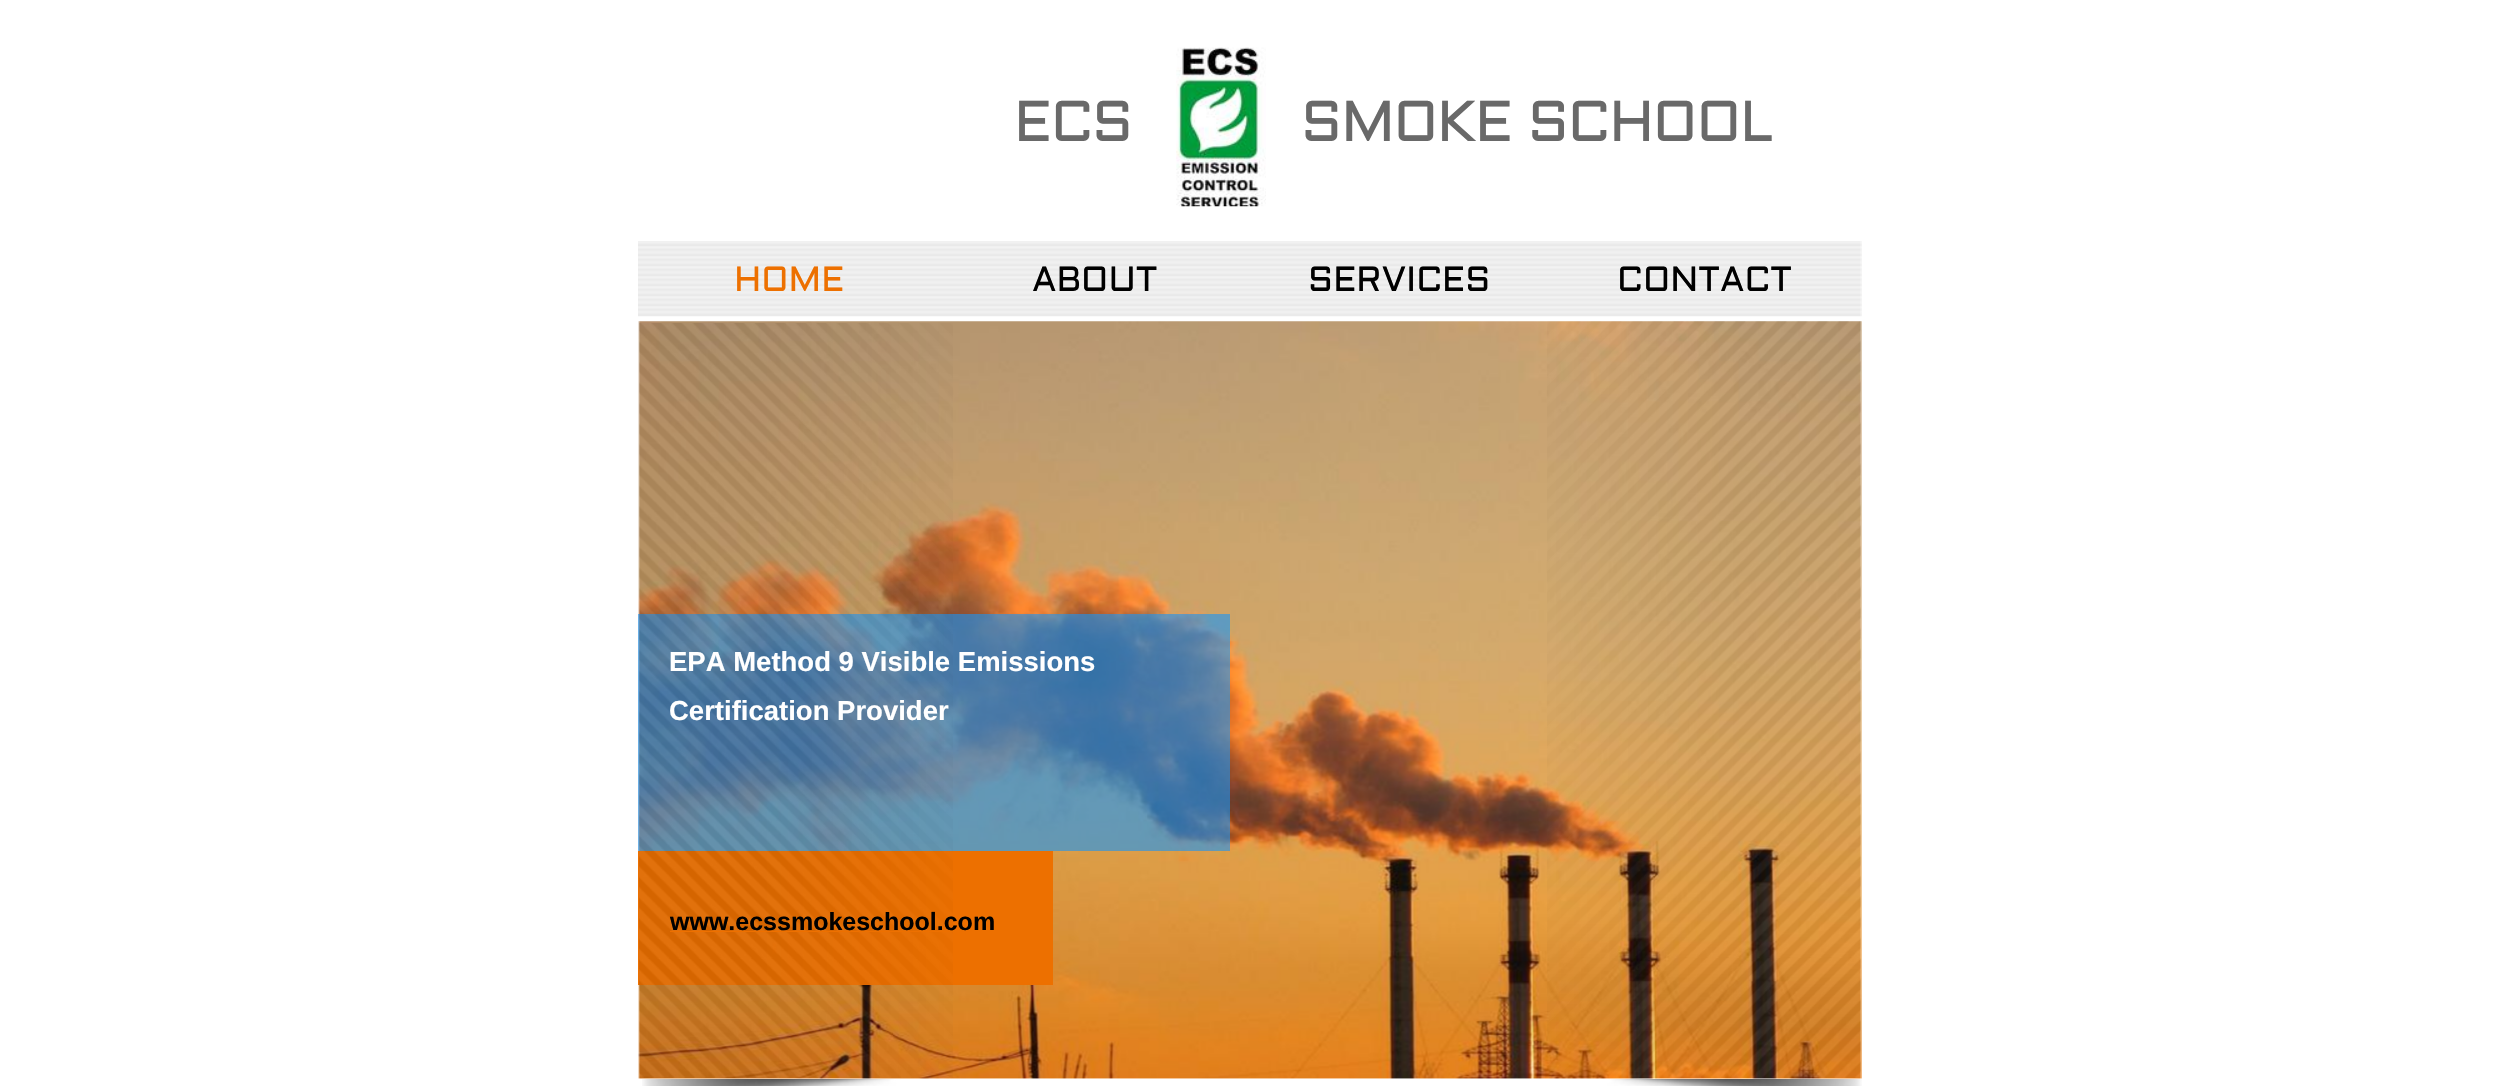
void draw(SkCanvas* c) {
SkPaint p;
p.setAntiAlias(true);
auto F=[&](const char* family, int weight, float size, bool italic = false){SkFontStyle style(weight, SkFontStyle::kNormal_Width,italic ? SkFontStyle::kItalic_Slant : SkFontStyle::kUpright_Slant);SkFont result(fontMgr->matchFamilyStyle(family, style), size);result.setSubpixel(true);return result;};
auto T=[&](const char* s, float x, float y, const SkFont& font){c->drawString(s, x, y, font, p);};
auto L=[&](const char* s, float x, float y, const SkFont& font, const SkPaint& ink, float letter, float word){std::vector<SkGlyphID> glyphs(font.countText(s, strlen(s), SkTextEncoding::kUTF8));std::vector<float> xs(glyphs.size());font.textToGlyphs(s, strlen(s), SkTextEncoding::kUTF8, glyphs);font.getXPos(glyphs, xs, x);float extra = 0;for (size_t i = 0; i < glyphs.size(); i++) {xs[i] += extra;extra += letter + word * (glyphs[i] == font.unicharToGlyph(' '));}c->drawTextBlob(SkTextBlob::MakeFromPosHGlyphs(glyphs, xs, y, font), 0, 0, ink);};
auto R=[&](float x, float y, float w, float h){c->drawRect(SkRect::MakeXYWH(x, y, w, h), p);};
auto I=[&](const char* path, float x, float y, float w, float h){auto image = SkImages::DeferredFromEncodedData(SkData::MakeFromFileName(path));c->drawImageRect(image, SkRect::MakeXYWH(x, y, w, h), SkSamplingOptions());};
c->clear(0xffffffff);
auto f1 = F("Aldrich",400,57.5);
p.setColor(0xff696969);
L("ECS",1014,141,f1,p,-1.25,0);
I("1.png",1176,47,90,160);
L("SMOKE SCHOOL",1301,141,f1,p,-1.25,0);
I("2.png",638,241,1224,76);
auto f2 = F("Aldrich",400,35);
p.setColor(0xffed7000);
T("HOME",734,291,f2);
p.setColor(0xff000000);
T("ABOUT",1032,291,f2);
T("SERVICES",1308,291,f2);
T("CONTACT",1617,291,f2);
I("3.png",638,321,1224,758);
p.setColor(0x991594f8);
R(638,614,592,237);
p.setColor(0xffed7000);
R(638,851,415,134);
I("4.png",639,323,314,755);
I("5.png",1547,321,314,757);
auto f3 = F("Liberation Sans",700,27.5);
p.setColor(0xffffffff);
T("EPA Method 9 Visible Emissions",669,671,f3);
T("Certification Provider",669,720,f3);
auto f4 = F("Liberation Sans",700,25);
p.setColor(0xff000000);
T("www.ecssmokeschool.com",670,930,f4);
p.setColor(0xffed7000);
R(670,931,283,1);
I("6.png",642,1079,1220,7);
}
